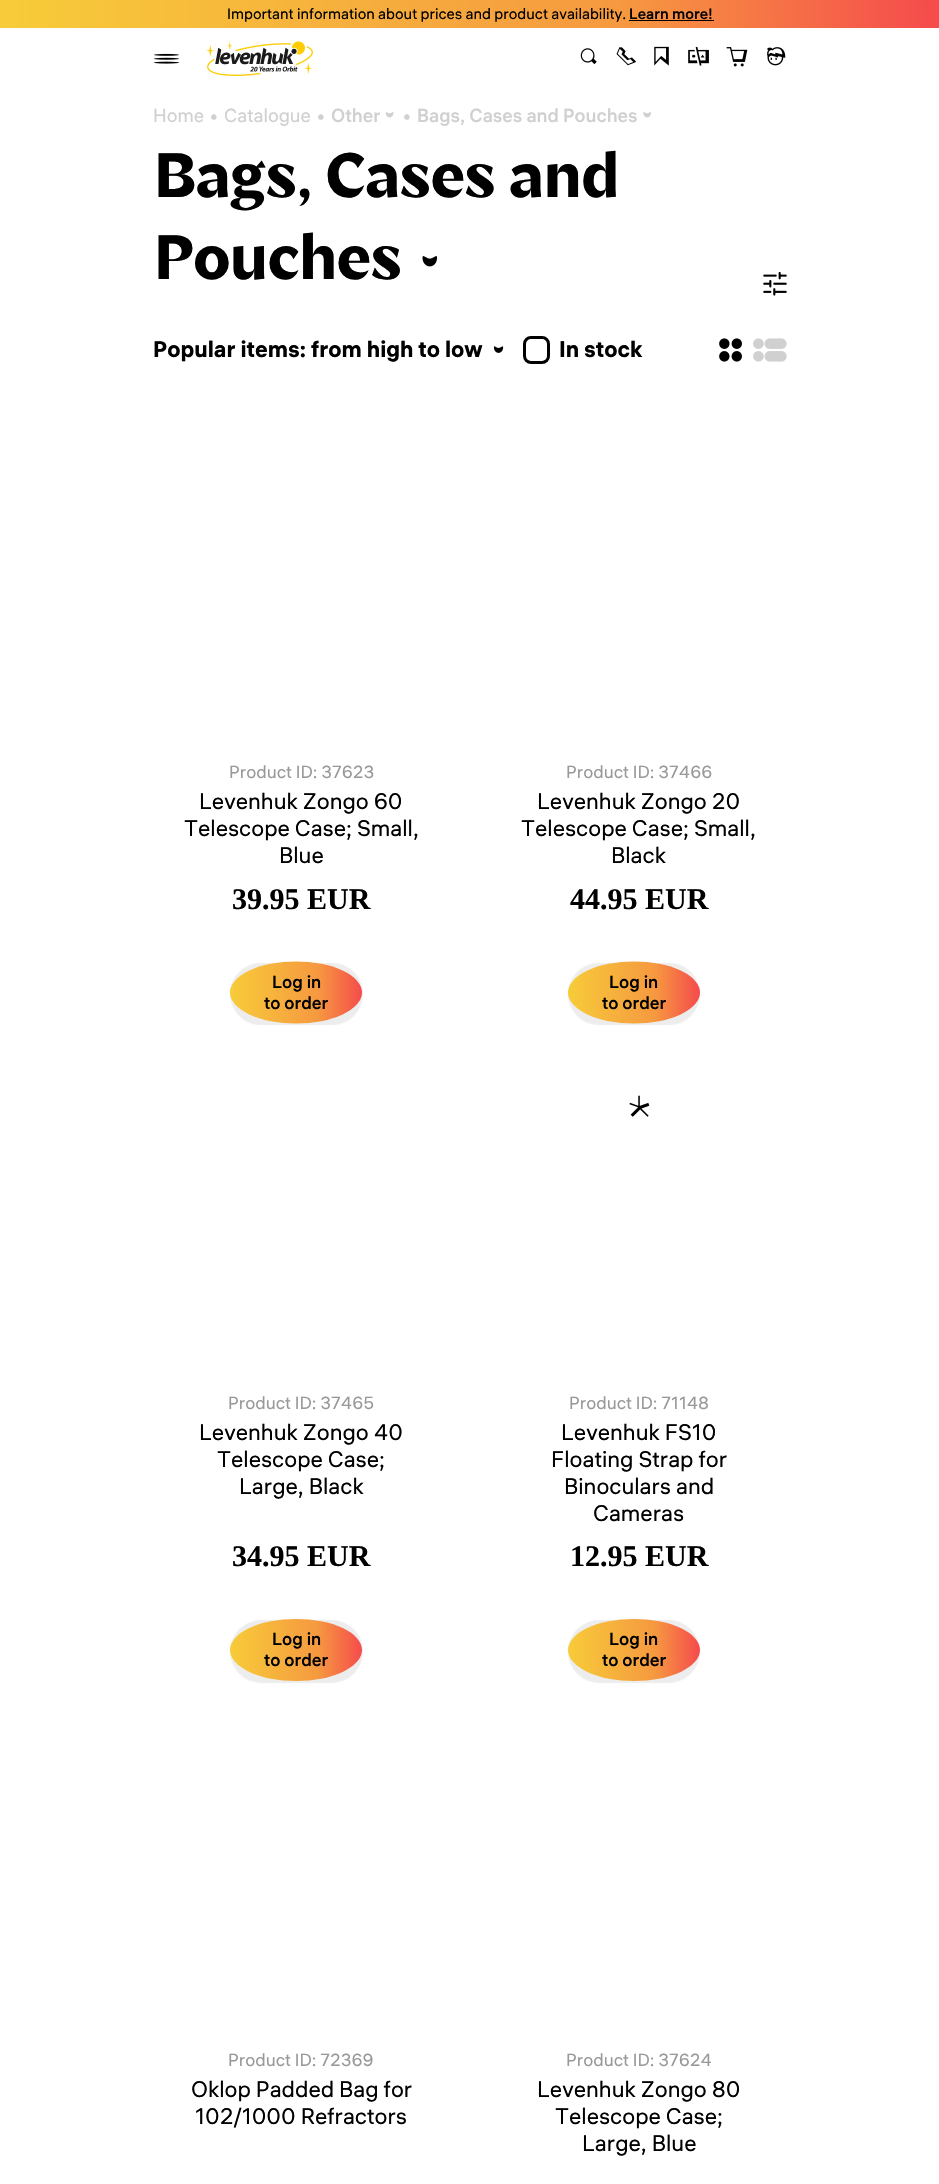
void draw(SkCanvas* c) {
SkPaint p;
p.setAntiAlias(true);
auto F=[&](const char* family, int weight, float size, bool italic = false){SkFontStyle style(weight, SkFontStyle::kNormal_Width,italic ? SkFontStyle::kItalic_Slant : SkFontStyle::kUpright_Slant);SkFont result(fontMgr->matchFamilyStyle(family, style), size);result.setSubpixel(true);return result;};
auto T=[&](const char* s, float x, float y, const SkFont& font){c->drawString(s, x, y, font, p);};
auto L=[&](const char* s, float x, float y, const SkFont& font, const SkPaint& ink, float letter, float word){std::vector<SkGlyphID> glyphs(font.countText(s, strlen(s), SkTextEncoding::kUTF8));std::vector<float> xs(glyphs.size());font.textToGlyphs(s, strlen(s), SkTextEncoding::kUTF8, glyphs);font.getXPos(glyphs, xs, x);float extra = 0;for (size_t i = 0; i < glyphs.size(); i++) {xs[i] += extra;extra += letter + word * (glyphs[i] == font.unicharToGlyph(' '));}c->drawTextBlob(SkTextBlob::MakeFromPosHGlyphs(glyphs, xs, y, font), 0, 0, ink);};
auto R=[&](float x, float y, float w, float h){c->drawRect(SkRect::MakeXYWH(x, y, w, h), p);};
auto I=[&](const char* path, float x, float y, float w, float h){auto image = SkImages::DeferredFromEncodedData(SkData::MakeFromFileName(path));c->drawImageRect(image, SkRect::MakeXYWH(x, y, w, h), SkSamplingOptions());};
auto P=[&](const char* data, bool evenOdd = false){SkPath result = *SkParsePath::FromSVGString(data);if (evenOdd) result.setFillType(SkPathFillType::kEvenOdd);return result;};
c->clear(0xffffffff);
{
const SkColor colors[] = {0xfff7cc39,0xfff69940,0xfff54c4c};
const float stops[] = {0,.66,.99};
const SkPoint ends[] = {{-.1,18}, {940,10}};
p.setShader(SkGradientShader::MakeLinear(ends, colors, stops, 3, SkTileMode::kClamp));
p.setAlpha(255);
}
R(0,0,939,28);
auto f1 = F("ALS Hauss",400,15);
p.setShader(nullptr);
p.setColor(0xff000000);
T("Important information about prices and product availability.",227,19,f1);
auto f2 = F("ALS Hauss",500,15);
T("Learn more!",629,19,f2);
R(629,20,85,1);
I("1.png",154,53,25,11);
I("2.png",206,41,107,35);
I("3.png",580,48,17,17);
I("4.png",616,47,20,19);
I("5.png",654,46,15,20);
I("6.png",688,46,21,20);
I("7.png",726,47,22,20);
I("8.png",767,47,19,19);
auto f3 = F("ALS Hauss",400,18.75);
p.setColor(0xffd0d0d0);
T("Home",153,122,f3);
T("•",210,122,f3);
T("Catalogue",224,122,f3);
T("•",317,122,f3);
auto f4 = F("ALS Hauss",500,18.75);
T("Other",331,122,f4);
I("9.png",385,112,9,6);
T("•",403,122,f3);
T("Bags, Cases and Pouches",417,122,f4);
I("10.png",643,112,8,6);
auto f5 = F("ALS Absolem",700,62);
p.setColor(0xff000000);
L("Bags, Cases and",153,197,f5,p,-1.25,0);
L("Pouches",153,279,f5,p,-1.25,0);
I("11.png",422,256,16,11);
I("12.png",763,271,24,25);
auto f6 = F("ALS Hauss",700,22.5);
T("Popular items: from high to low",153,357,f6);
I("13.png",493,346,11,7);
p.setStroke(true);
p.setStrokeWidth(3);
c->drawRoundRect(SkRect::MakeXYWH(524.5,337.5,24,25),6.5,6.5,p);
p.setStroke(false);
T("In stock",559,357,f6);
I("14.png",719,338,23,24);
I("15.png",753,338,34,24);
auto f7 = F("ALS Hauss",400,17.5);
p.setColor(0xff999999);
T("Product ID: 37623",229,778,f7);
auto f8 = F("ALS Hauss",400,22.5);
p.setColor(0xff000000);
T("Levenhuk Zongo 60",199,809,f8);
T("Telescope Case; Small,",184,836,f8);
T("Blue",279,863,f8);
auto f9 = F("Liberation Serif",700,30);
T("39.95 EUR",232,909,f9);
p.setColor(0x12000000);
p.setMaskFilter(SkMaskFilter::MakeBlur(kNormal_SkBlurStyle, .5));
c->drawRoundRect(SkRect::MakeXYWH(230,963,133,62),31,31,p);
p.setMaskFilter(nullptr);
p.setColor(0x26ffffff);
c->drawPath(P("M296 962c37 0 66 14 66 32l-1 4c3-6 1-13-4-18c-22-25-89-23-116-5c-6 4-11 10-11 18c1-17 31-31 66-31z"),p);
{
const SkColor colors[] = {0xfff7cc39,0xfff69940,0xfff54c4c};
const float stops[] = {0,.66,.99};
const SkPoint ends[] = {{230,993}, {363,992}};
p.setShader(SkGradientShader::MakeLinear(ends, colors, stops, 3, SkTileMode::kClamp));
p.setAlpha(255);
}
c->drawOval(SkRect::MakeXYWH(230,961.5,132,62),p);
auto f10 = F("ALS Hauss",500,17.5);
p.setShader(nullptr);
p.setColor(0xff000000);
T("Log in",272,988,f10);
T("to order",264,1009,f10);
p.setColor(0xff999999);
T("Product ID: 37466",566,778,f7);
p.setColor(0xff000000);
T("Levenhuk Zongo 20",537,809,f8);
T("Telescope Case; Small,",521,836,f8);
T("Black",611,863,f8);
T("44.95 EUR",570,909,f9);
p.setColor(0x12000000);
p.setMaskFilter(SkMaskFilter::MakeBlur(kNormal_SkBlurStyle, .5));
c->drawRoundRect(SkRect::MakeXYWH(568,963,132,62),31,31,p);
p.setMaskFilter(nullptr);
p.setColor(0x26ffffff);
c->drawPath(P("M634 962c35 0 65 14 66 31c0-8-5-14-11-18c-27-18-94-20-116 5c-5 5-7 12-4 18l-1-4c0-18 29-32 66-32z"),p);
{
const SkColor colors[] = {0xfff7cc39,0xfff69940,0xfff54c4c};
const float stops[] = {0,.66,.99};
const SkPoint ends[] = {{567,993}, {700,992}};
p.setShader(SkGradientShader::MakeLinear(ends, colors, stops, 3, SkTileMode::kClamp));
p.setAlpha(255);
}
c->drawOval(SkRect::MakeXYWH(568,961.5,132,62),p);
p.setShader(nullptr);
p.setColor(0xff000000);
T("Log in",609,988,f10);
T("to order",602,1009,f10);
p.setColor(0xff999999);
T("Product ID: 37465",228,1409,f7);
p.setColor(0xff000000);
T("Levenhuk Zongo 40",199,1440,f8);
T("Telescope Case;",217,1467,f8);
T("Large, Black",239,1494,f8);
T("34.95 EUR",232,1566,f9);
p.setColor(0x12000000);
p.setMaskFilter(SkMaskFilter::MakeBlur(kNormal_SkBlurStyle, .5));
c->drawRoundRect(SkRect::MakeXYWH(230,1620,133,63),31.5,31.5,p);
p.setMaskFilter(nullptr);
{
const SkColor colors[] = {0xfff7cc39,0xfff69940,0xfff54c4c};
const float stops[] = {0,.66,.99};
const SkPoint ends[] = {{230,1651}, {363,1649}};
p.setShader(SkGradientShader::MakeLinear(ends, colors, stops, 3, SkTileMode::kClamp));
p.setAlpha(255);
}
c->drawOval(SkRect::MakeXYWH(230,1619,132,62),p);
p.setShader(nullptr);
p.setColor(0xff000000);
T("Log in",272,1645,f10);
T("to order",264,1666,f10);
I("16.png",629,1095,21,22);
p.setColor(0xff999999);
T("Product ID: 71148",569,1409,f7);
p.setColor(0xff000000);
T("Levenhuk FS10",561,1440,f8);
T("Floating Strap for",551,1467,f8);
T("Binoculars and",564,1494,f8);
T("Cameras",593,1521,f8);
T("12.95 EUR",570,1566,f9);
p.setColor(0x12000000);
p.setMaskFilter(SkMaskFilter::MakeBlur(kNormal_SkBlurStyle, .5));
c->drawRoundRect(SkRect::MakeXYWH(568,1620,132,63),31.5,31.5,p);
p.setMaskFilter(nullptr);
{
const SkColor colors[] = {0xfff7cc39,0xfff69940,0xfff54c4c};
const float stops[] = {0,.66,.99};
const SkPoint ends[] = {{567,1651}, {700,1649}};
p.setShader(SkGradientShader::MakeLinear(ends, colors, stops, 3, SkTileMode::kClamp));
p.setAlpha(255);
}
c->drawOval(SkRect::MakeXYWH(568,1619,132,62),p);
p.setShader(nullptr);
p.setColor(0xff000000);
T("Log in",609,1645,f10);
T("to order",602,1666,f10);
p.setColor(0xff999999);
T("Product ID: 72369",228,2066,f7);
p.setColor(0xff000000);
T("Oklop Padded Bag for",191,2097,f8);
T("102/1000 Refractors",195,2124,f8);
p.setColor(0xff999999);
T("Product ID: 37624",566,2066,f7);
p.setColor(0xff000000);
T("Levenhuk Zongo 80",537,2097,f8);
T("Telescope Case;",555,2124,f8);
T("Large, Blue",582,2151,f8);
}
